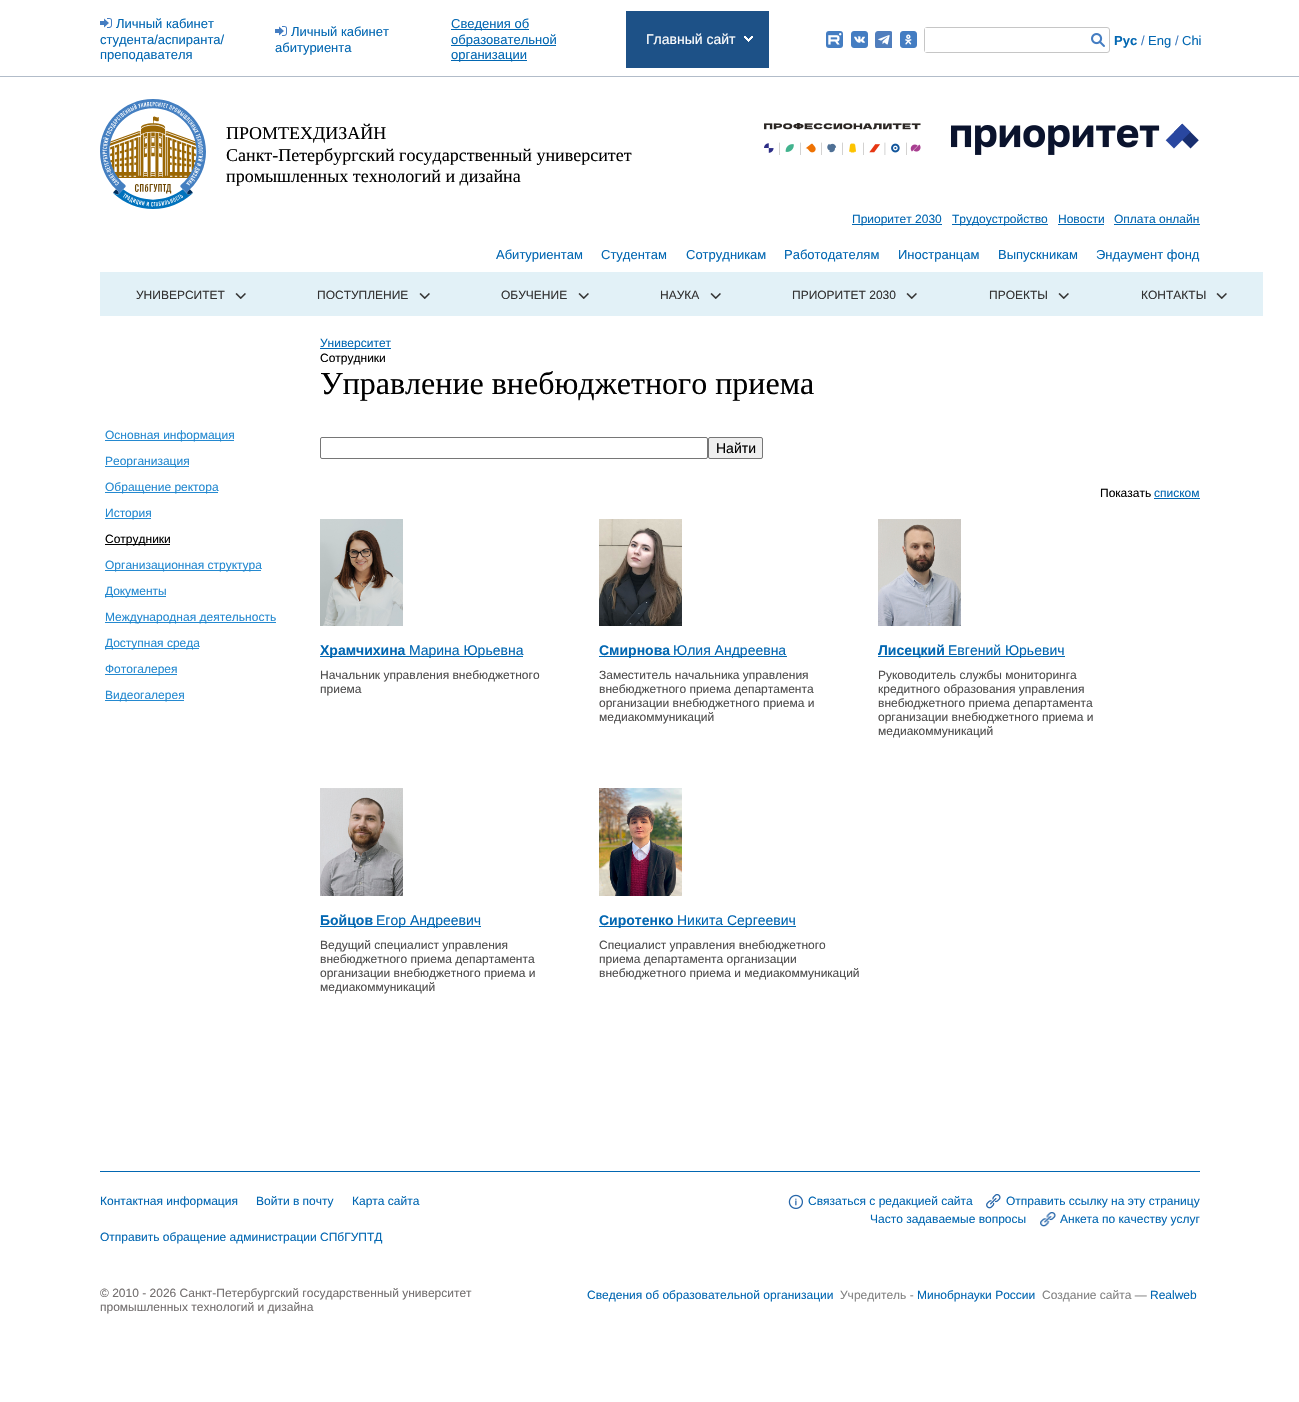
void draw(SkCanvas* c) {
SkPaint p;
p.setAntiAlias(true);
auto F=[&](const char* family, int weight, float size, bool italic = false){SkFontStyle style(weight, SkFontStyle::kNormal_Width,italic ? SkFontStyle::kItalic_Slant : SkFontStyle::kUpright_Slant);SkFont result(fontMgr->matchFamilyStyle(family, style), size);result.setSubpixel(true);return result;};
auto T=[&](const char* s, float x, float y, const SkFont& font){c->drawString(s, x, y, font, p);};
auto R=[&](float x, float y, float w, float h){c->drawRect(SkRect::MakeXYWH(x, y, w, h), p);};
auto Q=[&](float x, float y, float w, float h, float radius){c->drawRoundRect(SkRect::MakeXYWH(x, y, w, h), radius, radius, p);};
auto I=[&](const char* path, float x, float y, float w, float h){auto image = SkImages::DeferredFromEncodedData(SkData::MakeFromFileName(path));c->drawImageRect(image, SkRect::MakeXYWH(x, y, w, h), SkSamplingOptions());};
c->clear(0xffffffff);
I("1.png",100,18,12,10);
auto f1 = F("Liberation Sans",400,13);
p.setColor(0xff0267b2);
T("Личный кабинет",116,28,f1);
T("студента/аспиранта/",100,44,f1);
T("преподавателя",100,59,f1);
I("1.png",275,26,12,10);
T("Личный кабинет",291,36,f1);
T("абитуриента",275,52,f1);
R(451,29,78,1);
T("Сведения об",451,28,f1);
R(451,45,105,1);
T("образовательной",451,44,f1);
R(451,60,76,1);
T("организации",451,59,f1);
p.setColor(0xff1d5187);
R(626,11,143,57);
I("2.png",744,36,9,6);
auto f2 = F("Liberation Sans",400,14);
p.setColor(0xffffffff);
T("Главный сайт",646,44,f2);
p.setColor(0xff447dc2);
Q(826,31,17,17,3);
I("3.png",828,33,14,12);
I("4.png",851,31,17,17);
I("5.png",875,31,17,17);
I("6.png",900,31,17,17);
p.setStroke(true);
p.setStrokeWidth(1);
p.setColor(0xffc6c6c6);
c->drawRoundRect(SkRect::MakeXYWH(924.5,27.5,185,25),2.5,2.5,p);
p.setStroke(false);
p.setColor(0xffffffff);
R(925,28,2,24);
I("7.png",1091,33,14,14);
auto f3 = F("Liberation Sans",700,13);
p.setColor(0xff0267b2);
T("Рус",1114,45,f3);
p.setColor(0xff437dc1);
T("/",1141,45,f1);
p.setColor(0xff0267b2);
T("Eng",1148,45,f1);
p.setColor(0xff437dc1);
T("/",1175,45,f1);
p.setColor(0xff0267b2);
T("Chi",1182,45,f1);
p.setColor(0xffb2bcc9);
R(0,76,1299,1);
I("8.png",100,99,106,110);
auto f4 = F("Liberation Serif",400,18);
p.setColor(0xff000000);
T("ПРОМТЕХДИЗАЙН",226,139,f4);
T("Санкт-Петербургский государственный университет",226,161,f4);
T("промышленных технологий и дизайна",226,182,f4);
I("9.png",764,123,157,32);
I("10.png",951,123,248,32);
p.setColor(0xff0267b2);
R(852,224,90,1);
auto f5 = F("Liberation Sans",400,12);
T("Приоритет 2030",852,223,f5);
R(952,224,96,1);
T("Трудоустройство",952,223,f5);
T("Новости",1058,223,f5);
R(1058,224,46,1);
T("Оплата онлайн",1114,223,f5);
R(1114,224,86,1);
T("Абитуриентам",496,259,f1);
T("Студентам",601,259,f1);
T("Сотрудникам",686,259,f1);
T("Работодателям",784,259,f1);
T("Иностранцам",898,259,f1);
T("Выпускникам",998,259,f1);
T("Эндаумент фонд",1096,259,f1);
p.setColor(0xffe2f1f7);
R(100,272,1163,44);
p.setColor(0xff333333);
T("УНИВЕРСИТЕТ",136,299,f5);
I("11.png",235,293,11,6);
T("ПОСТУПЛЕНИЕ",317,299,f5);
I("11.png",419,293,11,6);
T("ОБУЧЕНИЕ",501,299,f5);
I("11.png",578,293,11,6);
T("НАУКА",660,299,f5);
I("11.png",710,293,11,6);
T("ПРИОРИТЕТ 2030",792,299,f5);
I("11.png",906,293,11,6);
T("ПРОЕКТЫ",989,299,f5);
I("11.png",1058,293,11,6);
T("КОНТАКТЫ",1141,299,f5);
I("11.png",1216,293,11,6);
p.setColor(0xff0267b2);
R(320,348,71,1);
T("Университет",320,347,f5);
p.setColor(0xff000000);
T("Сотрудники",320,362,f5);
auto f6 = F("Liberation Serif",400,32);
T("Управление внебюджетного приема",320,394,f6);
p.setColor(0xff2489d0);
R(105,440,129,1);
T("Основная информация",105,439,f5);
R(105,466,84,1);
T("Реорганизация",105,465,f5);
R(105,492,113,1);
T("Обращение ректора",105,491,f5);
R(105,518,46,1);
T("История",105,517,f5);
p.setColor(0xff000000);
R(105,544,65,1);
T("Сотрудники",105,543,f5);
p.setColor(0xff2489d0);
R(105,570,156,1);
T("Организационная структура",105,569,f5);
R(105,596,61,1);
T("Документы",105,595,f5);
R(105,622,171,1);
T("Международная деятельность",105,621,f5);
R(105,648,94,1);
T("Доступная среда",105,647,f5);
R(105,674,72,1);
T("Фотогалерея",105,673,f5);
R(105,700,79,1);
T("Видеогалерея",105,699,f5);
p.setStroke(true);
p.setColor(0xff767676);
c->drawRoundRect(SkRect::MakeXYWH(320.5,437.5,387,21),1.5,1.5,p);
p.setStroke(false);
p.setColor(0xffefefef);
c->drawRoundRect(SkRect::MakeXYWH(708.5,437.5,54,21),1.5,1.5,p);
p.setStroke(true);
p.setColor(0xff767676);
c->drawRoundRect(SkRect::MakeXYWH(708.5,437.5,54,21),1.5,1.5,p);
p.setStroke(false);
p.setColor(0xff000000);
T("Найти",716,453,f2);
T("Показать",1100,497,f5);
p.setColor(0xff0267b2);
T("списком",1154,497,f5);
R(1154,498,46,1);
I("12.png",320,519,83,107);
R(320,656,203,1);
auto f7 = F("Liberation Sans",700,14);
T("Храмчихина",320,655,f7);
T("Марина Юрьевна",409,655,f2);
p.setColor(0xff4e4d4d);
T("Начальник управления внебюджетного",320,679,f5);
T("приема",320,693,f5);
I("13.png",599,519,83,107);
p.setColor(0xff0267b2);
R(599,656,188,1);
T("Смирнова",599,655,f7);
T("Юлия Андреевна",673,655,f2);
p.setColor(0xff4e4d4d);
T("Заместитель начальника управления",599,679,f5);
T("внебюджетного приема департамента",599,693,f5);
T("организации внебюджетного приема и",599,707,f5);
T("медиакоммуникаций",599,721,f5);
I("14.png",878,519,83,107);
p.setColor(0xff0267b2);
R(878,656,187,1);
T("Лисецкий",878,655,f7);
T("Евгений Юрьевич",948,655,f2);
p.setColor(0xff4e4d4d);
T("Руководитель службы мониторинга",878,679,f5);
T("кредитного образования управления",878,693,f5);
T("внебюджетного приема департамента",878,707,f5);
T("организации внебюджетного приема и",878,721,f5);
T("медиакоммуникаций",878,735,f5);
I("15.png",320,788,83,108);
p.setColor(0xff0267b2);
R(320,926,161,1);
T("Бойцов",320,925,f7);
T("Егор Андреевич",376,925,f2);
p.setColor(0xff4e4d4d);
T("Ведущий специалист управления",320,949,f5);
T("внебюджетного приема департамента",320,963,f5);
T("организации внебюджетного приема и",320,977,f5);
T("медиакоммуникаций",320,991,f5);
I("16.png",599,788,83,108);
p.setColor(0xff0267b2);
R(599,926,197,1);
T("Сиротенко",599,925,f7);
T("Никита Сергеевич",677,925,f2);
p.setColor(0xff4e4d4d);
T("Специалист управления внебюджетного",599,949,f5);
T("приема департамента организации",599,963,f5);
T("внебюджетного приема и медиакоммуникаций",599,977,f5);
p.setColor(0xff0267b2);
R(100,1171,1100,1);
T("Контактная информация",100,1205,f5);
T("Войти в почту",256,1205,f5);
T("Карта сайта",352,1205,f5);
T("Отправить обращение администрации СПбГУПТД",100,1241,f5);
I("17.png",788,1194,15,15);
T("Связаться с редакцией сайта",808,1205,f5);
I("18.png",986,1194,15,15);
T("Отправить ссылку на эту страницу",1006,1205,f5);
T("Часто задаваемые вопросы",870,1223,f5);
I("19.png",1040,1212,16,15);
T("Анкета по качеству услуг",1060,1223,f5);
p.setColor(0xff736f6f);
T("© 2010 - 2026 Санкт-Петербургский государственный университет",100,1297,f5);
T("промышленных технологий и дизайна",100,1311,f5);
p.setColor(0xff0267b2);
T("Сведения об образовательной организации",587,1299,f5);
p.setColor(0xff838383);
T("Учредитель -",840,1299,f5);
p.setColor(0xff0267b2);
T("Минобрнауки России",917,1299,f5);
p.setColor(0xff838383);
T("Создание сайта —",1042,1299,f5);
p.setColor(0xff0267b2);
T("Realweb",1150,1299,f5);
}
